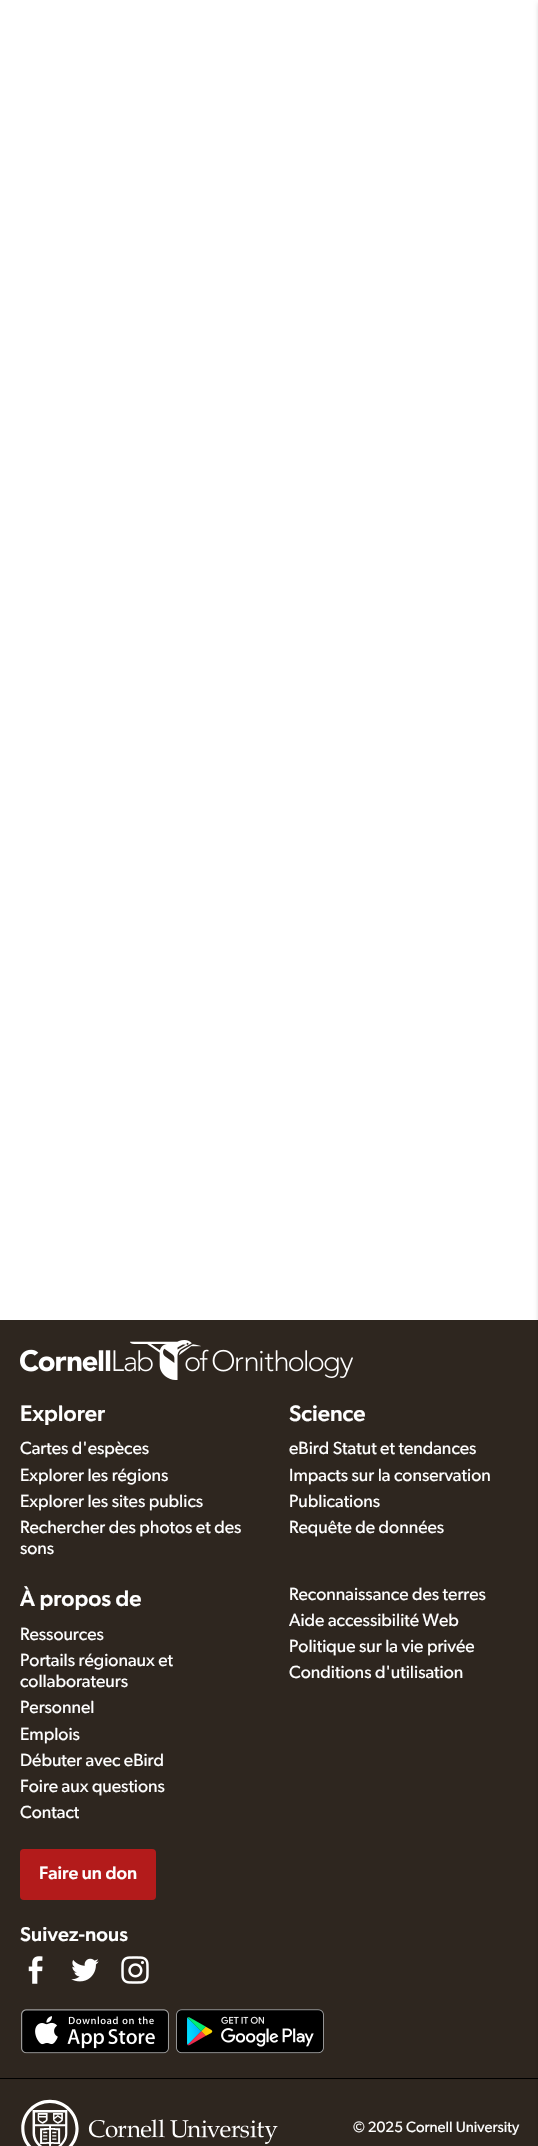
void draw(SkCanvas* c) {
SkPaint p;
p.setAntiAlias(true);
auto F=[&](const char* family, int weight, float size, bool italic = false){SkFontStyle style(weight, SkFontStyle::kNormal_Width,italic ? SkFontStyle::kItalic_Slant : SkFontStyle::kUpright_Slant);SkFont result(fontMgr->matchFamilyStyle(family, style), size);result.setSubpixel(true);return result;};
auto T=[&](const char* s, float x, float y, const SkFont& font){c->drawString(s, x, y, font, p);};
auto L=[&](const char* s, float x, float y, const SkFont& font, const SkPaint& ink, float letter, float word){std::vector<SkGlyphID> glyphs(font.countText(s, strlen(s), SkTextEncoding::kUTF8));std::vector<float> xs(glyphs.size());font.textToGlyphs(s, strlen(s), SkTextEncoding::kUTF8, glyphs);font.getXPos(glyphs, xs, x);float extra = 0;for (size_t i = 0; i < glyphs.size(); i++) {xs[i] += extra;extra += letter + word * (glyphs[i] == font.unicharToGlyph(' '));}c->drawTextBlob(SkTextBlob::MakeFromPosHGlyphs(glyphs, xs, y, font), 0, 0, ink);};
auto R=[&](float x, float y, float w, float h){c->drawRect(SkRect::MakeXYWH(x, y, w, h), p);};
auto Q=[&](float x, float y, float w, float h, float radius){c->drawRoundRect(SkRect::MakeXYWH(x, y, w, h), radius, radius, p);};
auto I=[&](const char* path, float x, float y, float w, float h){auto image = SkImages::DeferredFromEncodedData(SkData::MakeFromFileName(path));c->drawImageRect(image, SkRect::MakeXYWH(x, y, w, h), SkSamplingOptions());};
c->clear(0xffffffff);
p.setColor(0xff2e261f);
R(0,1320,538,826);
I("1.png",20,1340,333,40);
auto f1 = F("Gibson",500,22.5);
p.setColor(0xffffffff);
T("Explorer",20,1421,f1);
auto f2 = F("Gibson",400,17.6);
T("Cartes d'espèces",20,1454,f2);
T("Explorer les régions",20,1481,f2);
T("Explorer les sites publics",20,1507,f2);
T("Rechercher des photos et des",20,1533,f2);
T("sons",20,1554,f2);
T("Science",289,1421,f1);
T("eBird Statut et tendances",289,1454,f2);
T("Impacts sur la conservation",289,1481,f2);
T("Publications",289,1507,f2);
T("Requête de données",289,1533,f2);
T("À propos de",20,1606,f1);
T("Ressources",20,1640,f2);
T("Portails régionaux et",20,1666,f2);
T("collaborateurs",20,1687,f2);
T("Personnel",20,1713,f2);
T("Emplois",20,1740,f2);
T("Débuter avec eBird",20,1766,f2);
T("Foire aux questions",20,1792,f2);
T("Contact",20,1818,f2);
T("Reconnaissance des terres",289,1600,f2);
T("Aide accessibilité Web",289,1626,f2);
T("Politique sur la vie privée",289,1652,f2);
T("Conditions d'utilisation",289,1678,f2);
p.setColor(0xffb31b1b);
Q(20,1849,136,51,4);
auto f3 = F("Gibson",500,18);
p.setColor(0xffffffff);
T("Faire un don",39,1879,f3);
auto f4 = F("Gibson",500,20);
L("Suivez-nous",20,1941,f4,p,.1,0);
I("2.png",28,1956,15,28);
I("3.png",71,1958,28,24);
I("4.png",121,1956,28,28);
I("5.png",21,2009,148,45);
I("6.png",176,2009,148,45);
p.setColor(0xff000000);
R(0,2078,538,1);
I("7.png",21,2099,257,47);
auto f5 = F("Gibson",400,15);
p.setColor(0xffffffff);
T("© 2025 Cornell University",353,2132,f5);
p.setColor(0x33000000);
p.setMaskFilter(SkMaskFilter::MakeBlur(kNormal_SkBlurStyle, 2.5));
c->drawRect(SkRect::MakeXYWH(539,3,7,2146),p);
p.setMaskFilter(nullptr);
}
